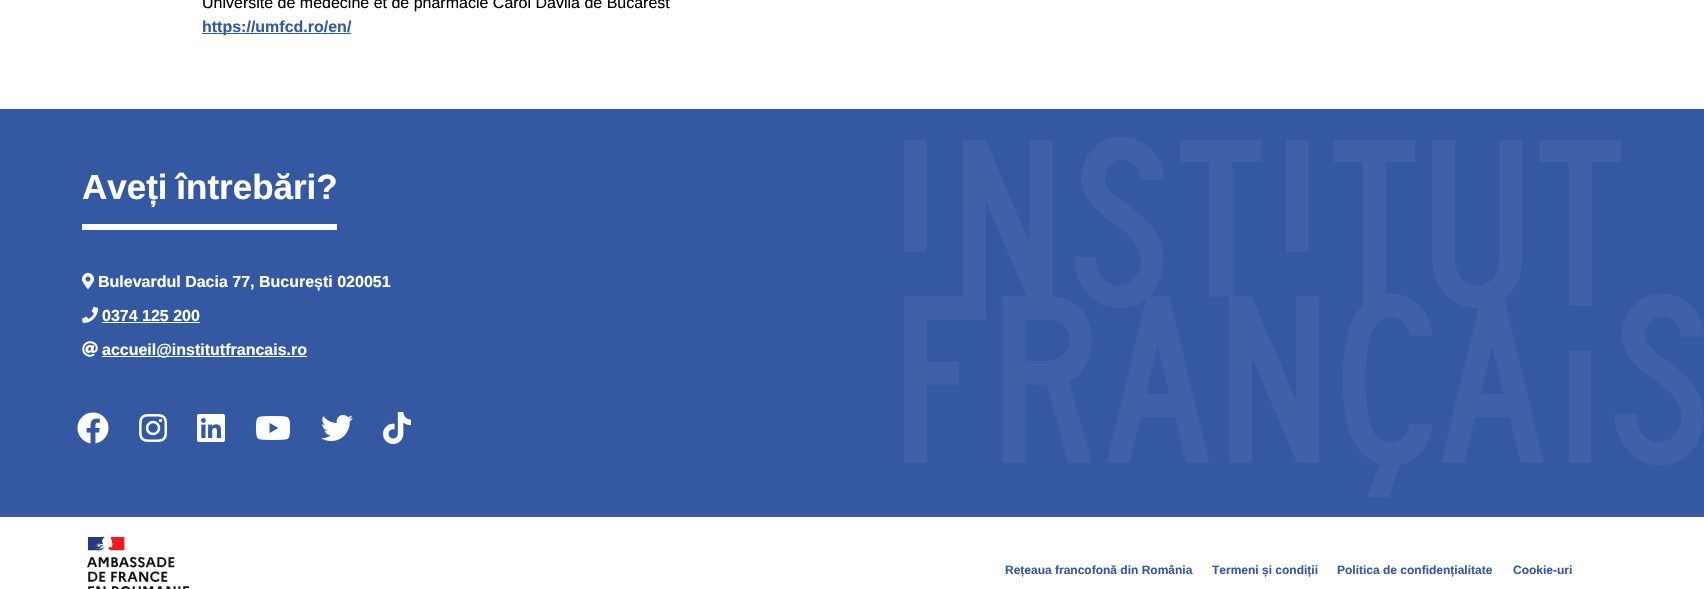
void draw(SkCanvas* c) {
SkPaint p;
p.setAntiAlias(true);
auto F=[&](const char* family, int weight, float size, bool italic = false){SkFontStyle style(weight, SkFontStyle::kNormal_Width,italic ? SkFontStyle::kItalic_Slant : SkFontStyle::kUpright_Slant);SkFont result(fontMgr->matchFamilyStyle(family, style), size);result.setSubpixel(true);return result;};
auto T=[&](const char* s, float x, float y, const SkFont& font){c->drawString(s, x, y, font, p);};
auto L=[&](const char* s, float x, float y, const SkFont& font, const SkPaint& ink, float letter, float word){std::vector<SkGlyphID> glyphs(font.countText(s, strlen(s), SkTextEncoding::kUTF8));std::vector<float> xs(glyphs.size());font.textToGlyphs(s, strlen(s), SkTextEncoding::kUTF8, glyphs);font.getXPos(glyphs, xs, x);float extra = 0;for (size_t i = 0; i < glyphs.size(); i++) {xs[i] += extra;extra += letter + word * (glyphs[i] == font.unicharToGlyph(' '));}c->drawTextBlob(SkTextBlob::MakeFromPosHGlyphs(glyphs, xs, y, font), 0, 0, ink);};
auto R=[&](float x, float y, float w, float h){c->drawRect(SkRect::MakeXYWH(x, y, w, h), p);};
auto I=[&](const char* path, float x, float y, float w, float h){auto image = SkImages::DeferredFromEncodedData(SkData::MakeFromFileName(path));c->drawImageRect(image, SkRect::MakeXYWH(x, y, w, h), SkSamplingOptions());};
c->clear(0xffffffff);
auto f1 = F("Liberation Sans",400,16);
p.setColor(0xff000000);
T("Université de médecine et de pharmacie Carol Davila de Bucarest",202,8,f1);
p.setColor(0xff3558a2);
R(202,33,149,1);
auto f2 = F("Liberation Sans",700,16);
T("https://umfcd.ro/en/",202,32,f2);
R(0,109,1704,408);
I("1.png",904,137,800,360);
p.setColor(0xffffffff);
R(82,224,255,6);
auto f3 = F("Liberation Sans",700,35);
L("Aveți întrebări?",82,199,f3,p,0,-1);
I("2.png",82,273,12,16);
T("Bulevardul Dacia 77, București 020051",98,287,f2);
I("3.png",82,307,16,16);
T("0374 125 200",102,321,f2);
R(102,322,98,1);
I("4.png",82,341,16,16);
R(102,356,205,1);
T("accueil@institutfrancais.ro",102,355,f2);
I("5.png",77,412,32,32);
I("6.png",139,414,29,28);
I("7.png",197,414,28,28);
I("8.png",255,416,36,24);
I("9.png",321,415,32,26);
I("10.png",383,412,28,32);
I("11.png",87,537,102,52);
auto f4 = F("Liberation Sans",700,12);
p.setColor(0xff3558a2);
T("Rețeaua francofonă din România",1005,574,f4);
T("Termeni și condiții",1212,574,f4);
T("Politica de confidențialitate",1337,574,f4);
T("Cookie-uri",1513,574,f4);
}
